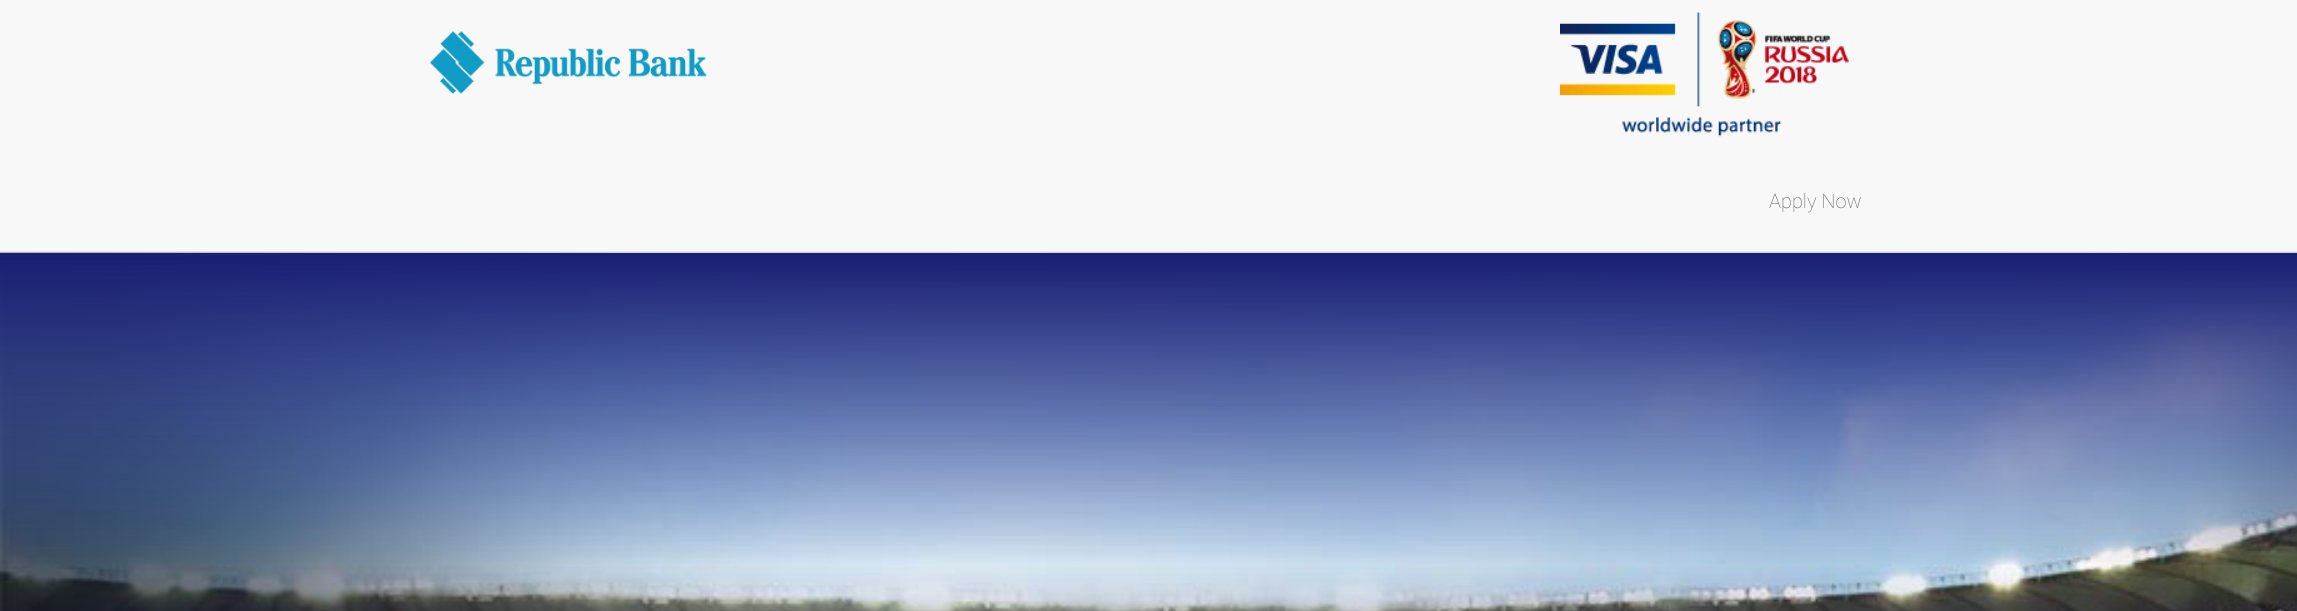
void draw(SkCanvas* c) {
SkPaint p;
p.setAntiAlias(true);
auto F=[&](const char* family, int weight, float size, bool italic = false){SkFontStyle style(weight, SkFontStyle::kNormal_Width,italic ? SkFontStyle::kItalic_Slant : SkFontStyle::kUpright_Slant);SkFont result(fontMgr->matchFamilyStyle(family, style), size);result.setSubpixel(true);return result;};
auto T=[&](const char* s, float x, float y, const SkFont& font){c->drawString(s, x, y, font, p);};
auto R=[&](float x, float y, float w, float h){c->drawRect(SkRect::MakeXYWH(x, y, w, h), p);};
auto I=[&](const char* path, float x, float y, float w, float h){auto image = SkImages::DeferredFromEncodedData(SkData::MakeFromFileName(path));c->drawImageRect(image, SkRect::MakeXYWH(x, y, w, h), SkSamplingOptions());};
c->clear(0xffffffff);
p.setColor(0xfff8f8f8);
R(0,0,2297,251);
p.setColor(0xffe7e7e7);
R(0,251,2297,1);
I("1.png",430,31,277,63);
I("2.png",1560,12,289,125);
auto f1 = F("Roboto",100,20);
p.setColor(0xff777777);
T("Apply Now",1769,208,f1);
I("3.png",0,252,2297,359);
}
